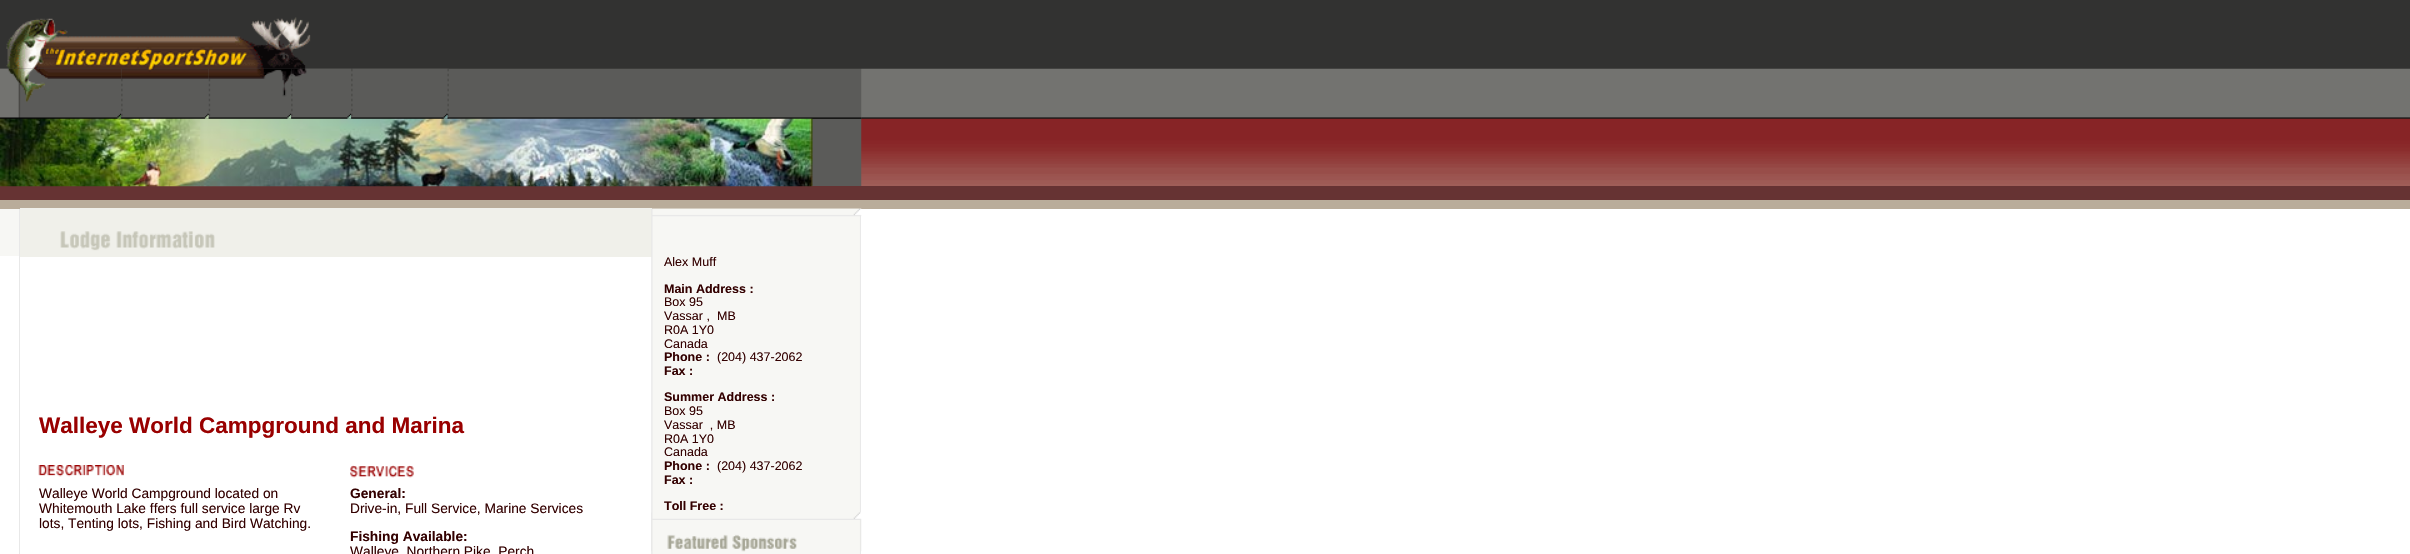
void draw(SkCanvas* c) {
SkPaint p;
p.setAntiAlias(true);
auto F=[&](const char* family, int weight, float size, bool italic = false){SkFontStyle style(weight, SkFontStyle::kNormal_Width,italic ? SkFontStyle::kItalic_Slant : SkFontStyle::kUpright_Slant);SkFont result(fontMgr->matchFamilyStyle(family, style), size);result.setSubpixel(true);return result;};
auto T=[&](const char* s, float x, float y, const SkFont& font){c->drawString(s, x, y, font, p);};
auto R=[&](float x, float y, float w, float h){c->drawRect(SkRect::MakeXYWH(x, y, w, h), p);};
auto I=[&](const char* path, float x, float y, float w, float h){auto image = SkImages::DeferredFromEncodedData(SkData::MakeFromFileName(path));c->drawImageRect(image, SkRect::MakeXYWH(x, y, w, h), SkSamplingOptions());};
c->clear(0xff5b5b59);
p.setColor(0xff323231);
R(0,0,2410,69);
I("2.png",0,68,862,51);
I("3.png",0,68,19,51);
I("4.png",18,68,104,51);
I("5.png",121,68,88,51);
I("6.png",208,68,84,51);
I("7.png",291,68,61,51);
I("1.png",6,17,305,52);
I("8.png",351,68,98,51);
I("9.png",861,68,1549,51);
p.setColor(0xff663333);
R(0,186,2410,14);
I("10.png",0,118,813,69);
I("11.png",861,118,1549,68);
p.setColor(0xffb9ac9a);
R(0,200,2410,9);
p.setColor(0xffffffff);
R(0,256,652,298);
auto f1 = F("Liberation Sans",700,22.5);
p.setColor(0xff990000);
T("Walleye World Campground and Marina",39,433,f1);
I("12.png",38,465,86,12);
auto f2 = F("Liberation Sans",400,13.75);
p.setColor(0xff330000);
T("Walleye World Campground located on",39,498,f2);
T("Whitemouth Lake ffers full service large Rv",39,513,f2);
T("lots, Tenting lots, Fishing and Bird Watching.",39,528,f2);
I("13.png",350,465,64,13);
auto f3 = F("Liberation Sans",700,13.75);
T("General:",350,498,f3);
T("Drive-in, Full Service, Marine Services",350,513,f2);
T("Fishing Available:",350,541,f3);
T("Walleye, Northern Pike, Perch",350,556,f2);
p.setColor(0xfff7f7f4);
R(0,209,19,47);
p.setColor(0xffe8e8e8);
R(19,209,1,345);
p.setColor(0xfff0f0ea);
R(20,208,632,49);
I("14.png",60,231,155,20);
I("15.png",651,208,211,346);
p.setColor(0xffffffff);
R(861,209,1549,345);
I("16.png",652,208,210,9);
auto f4 = F("Liberation Sans",400,12.5);
p.setColor(0xff330000);
T("Alex Muff",664,266,f4);
auto f5 = F("Liberation Sans",700,12.5);
T("Main Address :",664,293,f5);
T("Box 95",664,306,f4);
T("Vassar ,",664,320,f4);
T("MB",717,320,f4);
T("R0A 1Y0",664,334,f4);
T("Canada",664,348,f4);
T("Phone :",664,361,f5);
T("(204) 437-2062",717,361,f4);
T("Fax :",664,375,f5);
T("Summer Address :",664,401,f5);
T("Box 95",664,415,f4);
T("Vassar  , MB",664,429,f4);
T("R0A 1Y0",664,443,f4);
T("Canada",664,456,f4);
T("Phone :",664,470,f5);
T("(204) 437-2062",717,470,f4);
T("Fax :",664,484,f5);
T("Toll Free :",664,510,f5);
I("17.png",651,512,211,8);
I("18.png",651,520,211,32);
}
